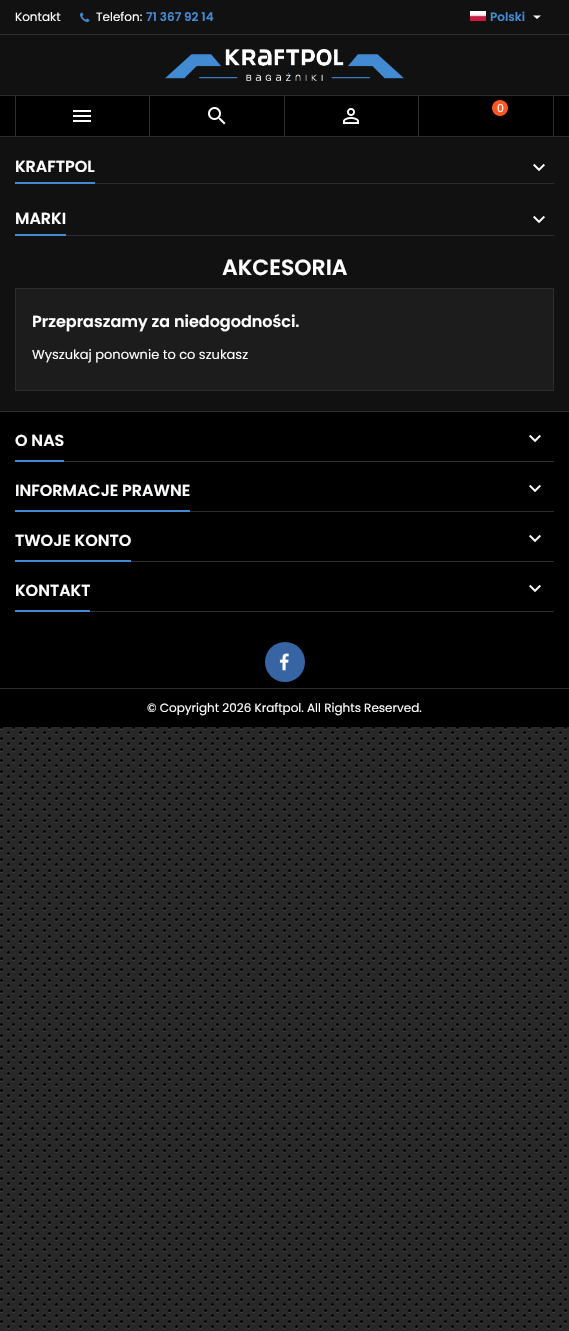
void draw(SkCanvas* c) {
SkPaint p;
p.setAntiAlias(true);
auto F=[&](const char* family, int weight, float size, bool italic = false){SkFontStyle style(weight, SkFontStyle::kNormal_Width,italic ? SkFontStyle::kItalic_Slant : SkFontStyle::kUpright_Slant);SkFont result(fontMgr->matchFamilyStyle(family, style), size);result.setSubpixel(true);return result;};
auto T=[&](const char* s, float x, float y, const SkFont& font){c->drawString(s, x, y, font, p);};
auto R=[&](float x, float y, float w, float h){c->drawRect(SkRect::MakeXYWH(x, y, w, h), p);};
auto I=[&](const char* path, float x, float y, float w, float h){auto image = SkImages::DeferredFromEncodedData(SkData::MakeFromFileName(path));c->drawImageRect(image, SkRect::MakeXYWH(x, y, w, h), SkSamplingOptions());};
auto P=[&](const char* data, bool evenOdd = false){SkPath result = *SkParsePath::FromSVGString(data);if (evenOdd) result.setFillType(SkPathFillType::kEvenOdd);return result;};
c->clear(0xff282828);
I("1.png",0,727,567,602);
p.setColor(0xff111111);
R(0,0,569,411);
p.setColor(0xff2d2d2d);
R(0,34,569,1);
auto f1 = F("Poppins",400,12);
p.setColor(0xffffffff);
T("Kontakt",15,21,f1);
I("2.png",80,12,10,10);
T("Telefon:",96,21,f1);
auto f2 = F("Poppins",600,12);
p.setColor(0xff428ad1);
T("71 367 92 14",146,21,f2);
I("3.png",470,11,16,10);
T("Polski",490,21,f2);
p.setColor(0xffffffff);
c->drawPath(P("M533 15.5h8l-4 3.5z"),p);
I("4.png",165,49,239,32);
p.setColor(0xff000000);
R(0,96,569,40);
p.setColor(0xff2d2d2d);
R(0,95,569,1);
R(0,136,569,1);
R(149,96,1,40);
R(15,96,1,40);
I("5.png",73,110,18,12);
R(284,96,1,40);
I("6.png",208,107,18,18);
R(418,96,1,40);
I("7.png",343,108,16,16);
R(553,96,1,40);
p.setColor(0xffff5722);
c->drawCircle(500,108,8,p);
auto f3 = F("Poppins",400,11);
p.setColor(0xffffffff);
T("0",497,112,f3);
p.setColor(0xff2d2d2d);
R(95,183,459,1);
p.setColor(0xff428ad1);
R(15,182,80,2);
auto f4 = F("Poppins",600,16);
p.setColor(0xffffffff);
T("KRAFTPOL",15,172,f4);
I("8.png",533,163,12,9);
p.setColor(0xff2d2d2d);
R(66,235,488,1);
p.setColor(0xff428ad1);
R(15,234,51,2);
p.setColor(0xffffffff);
T("MARKI",15,224,f4);
I("8.png",533,215,12,9);
auto f5 = F("Poppins",600,22);
T("AKCESORIA",222,275,f5);
p.setColor(0xff1c1c1c);
c->drawRect(SkRect::MakeXYWH(15.5,288.5,538,102),p);
p.setStroke(true);
p.setStrokeWidth(1);
p.setColor(0xff2d2d2d);
c->drawRect(SkRect::MakeXYWH(15.5,288.5,538,102),p);
p.setStroke(false);
p.setColor(0xffffffff);
T("Przepraszamy za niedogodności.",32,327,f4);
auto f6 = F("Poppins",400,13);
T("Wyszukaj ponownie to co szukasz",32,359,f6);
p.setColor(0xff000000);
R(0,412,569,276);
p.setColor(0xff2d2d2d);
R(0,411,569,1);
R(64,461,490,1);
p.setColor(0xff428ad1);
R(15,460,49,2);
p.setColor(0xffffffff);
T("O NAS",15,446,f4);
I("9.png",529,434,12,9);
p.setColor(0xff2d2d2d);
R(190,511,364,1);
p.setColor(0xff428ad1);
R(15,510,175,2);
p.setColor(0xffffffff);
T("INFORMACJE PRAWNE",15,496,f4);
I("9.png",529,484,12,9);
p.setColor(0xff2d2d2d);
R(131,561,423,1);
p.setColor(0xff428ad1);
R(15,560,116,2);
p.setColor(0xffffffff);
T("TWOJE KONTO",15,546,f4);
I("9.png",529,534,12,9);
p.setColor(0xff2d2d2d);
R(90,611,464,1);
p.setColor(0xff428ad1);
R(15,610,75,2);
p.setColor(0xffffffff);
T("KONTAKT",15,596,f4);
I("9.png",529,584,12,9);
p.setColor(0xff3765a3);
c->drawCircle(285,662,20,p);
I("10.png",279,653,10,18);
p.setColor(0xff000000);
R(0,689,569,38);
p.setColor(0xff2d2d2d);
R(0,688,569,1);
p.setColor(0xffffffff);
T("© Copyright 2026 Kraftpol. All Rights Reserved.",147,712,f1);
}
